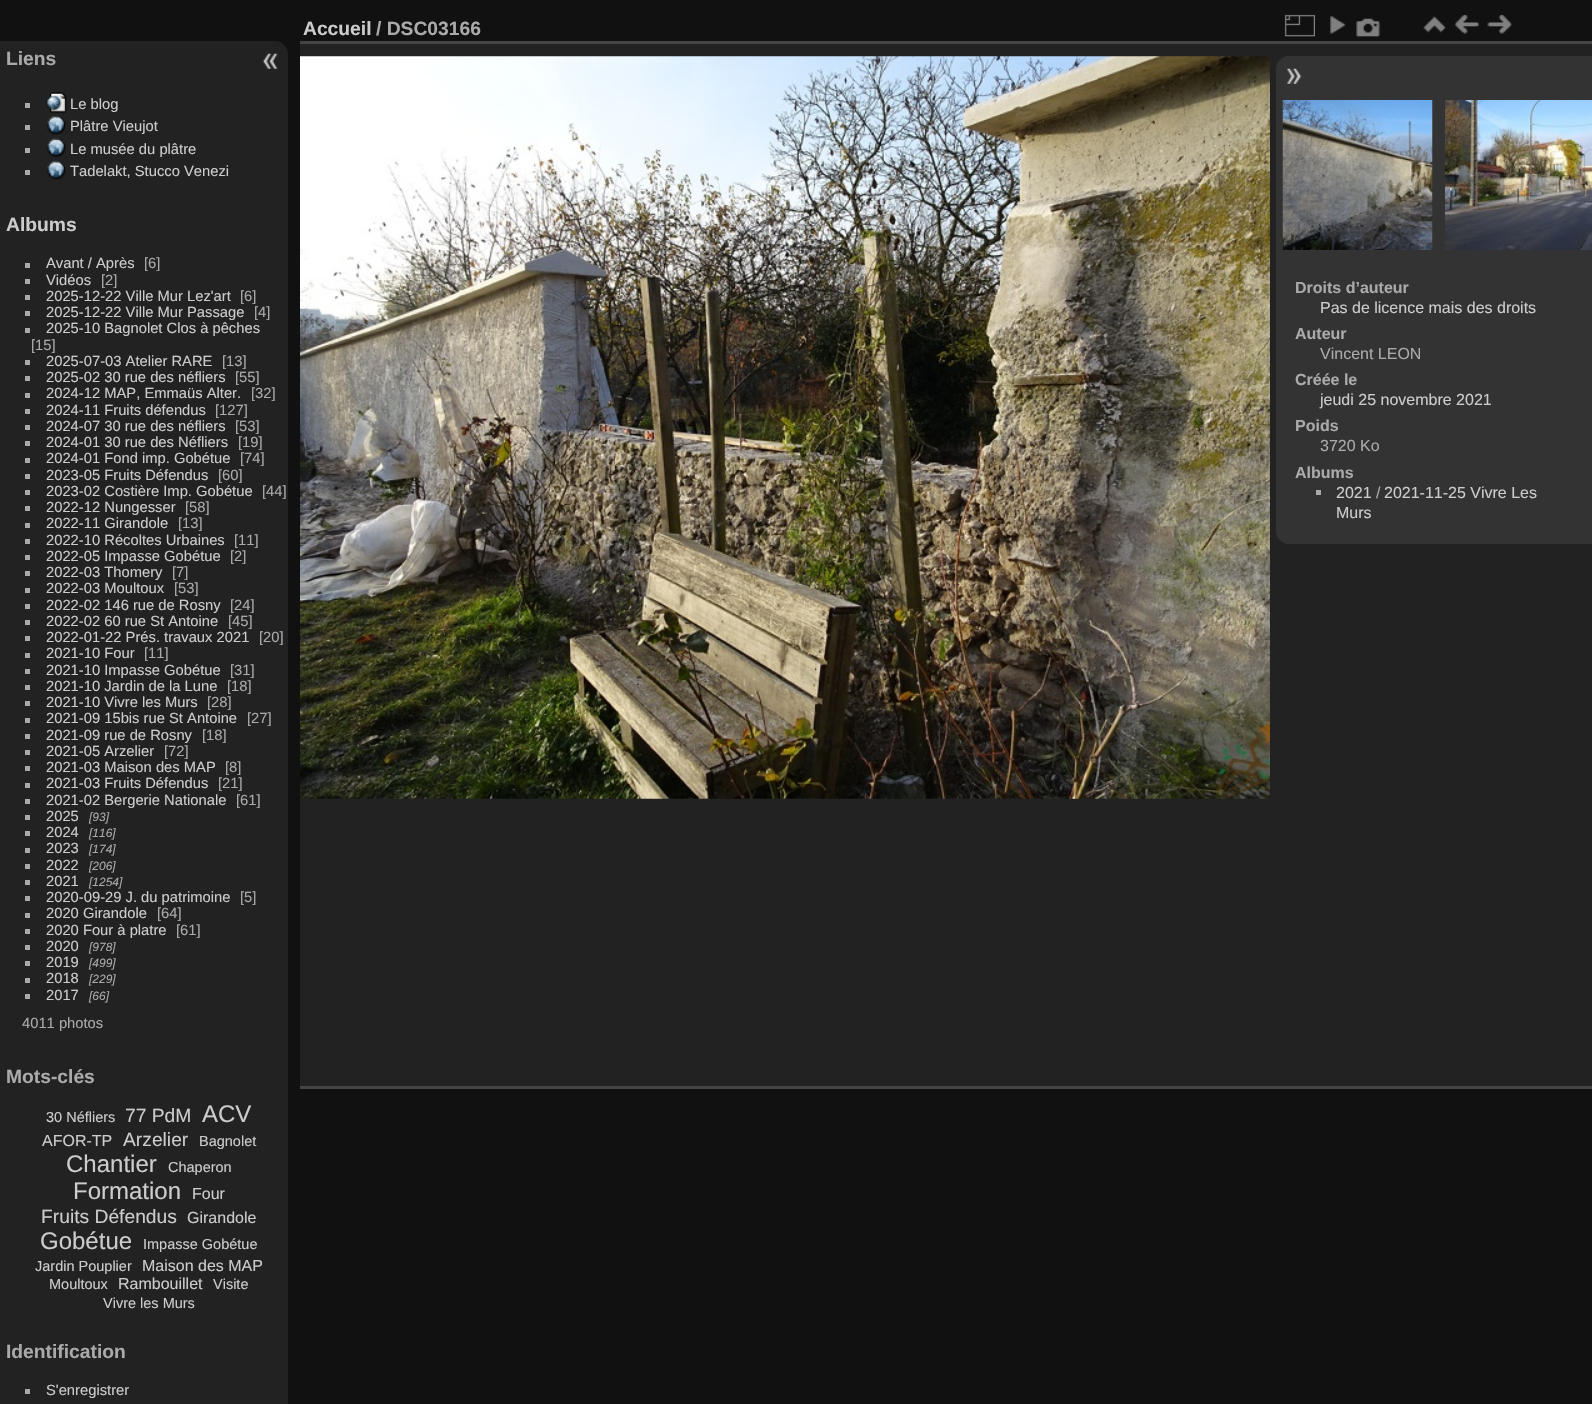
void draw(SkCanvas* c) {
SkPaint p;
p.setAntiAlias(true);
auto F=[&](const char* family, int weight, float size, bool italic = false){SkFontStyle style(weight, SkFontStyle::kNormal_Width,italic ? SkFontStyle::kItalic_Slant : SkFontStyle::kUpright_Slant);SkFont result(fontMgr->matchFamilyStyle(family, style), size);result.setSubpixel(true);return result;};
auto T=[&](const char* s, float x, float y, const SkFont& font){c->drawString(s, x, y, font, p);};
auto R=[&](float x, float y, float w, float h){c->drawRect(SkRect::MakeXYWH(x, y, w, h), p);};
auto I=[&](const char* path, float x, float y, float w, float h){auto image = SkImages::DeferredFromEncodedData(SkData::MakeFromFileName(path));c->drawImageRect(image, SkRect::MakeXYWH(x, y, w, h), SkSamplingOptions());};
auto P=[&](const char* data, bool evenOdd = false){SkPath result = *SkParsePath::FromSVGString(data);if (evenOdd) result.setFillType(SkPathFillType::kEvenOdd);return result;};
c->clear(0xff111111);
p.setColor(0xff222222);
c->drawPath(P("M0 41h275c7 0 13 6 13 13v1350c0 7-6 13-13 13h-275z"),p);
auto f1 = F("Liberation Sans",700,19.25);
p.setColor(0xffaaaaaa);
T("Liens",6,65,f1);
R(25,103,5,5);
I("1.png",46,92,21,21);
auto f2 = F("Liberation Sans",400,14.75);
p.setColor(0xffcccccc);
T("Le blog",70,109,f2);
p.setColor(0xffaaaaaa);
R(25,125,5,5);
I("2.png",46,115,20,20);
p.setColor(0xffcccccc);
T("Plâtre Vieujot",70,131,f2);
p.setColor(0xffaaaaaa);
R(25,148,5,5);
I("3.png",46,137,20,20);
p.setColor(0xffcccccc);
T("Le musée du plâtre",70,154,f2);
p.setColor(0xffaaaaaa);
R(25,170,5,5);
I("2.png",46,160,20,20);
p.setColor(0xffcccccc);
T("Tadelakt, Stucco Venezi",70,176,f2);
T("Albums",6,231,f1);
p.setColor(0xffaaaaaa);
R(25,263,5,5);
p.setColor(0xffcccccc);
T("Avant / Après",46,268,f2);
p.setColor(0xffaaaaaa);
T("[6]",144,268,f2);
R(25,279,5,5);
p.setColor(0xffcccccc);
T("Vidéos",46,285,f2);
p.setColor(0xffaaaaaa);
T("[2]",101,285,f2);
R(25,295,5,5);
p.setColor(0xffcccccc);
T("2025-12-22 Ville Mur Lez'art",46,301,f2);
p.setColor(0xffaaaaaa);
T("[6]",240,301,f2);
R(25,311,5,5);
p.setColor(0xffcccccc);
T("2025-12-22 Ville Mur Passage",46,317,f2);
p.setColor(0xffaaaaaa);
T("[4]",254,317,f2);
R(25,328,5,5);
p.setColor(0xffcccccc);
T("2025-10 Bagnolet Clos à pêches",46,333,f2);
p.setColor(0xffaaaaaa);
T("[15]",31,350,f2);
R(25,360,5,5);
p.setColor(0xffcccccc);
T("2025-07-03 Atelier RARE",46,366,f2);
p.setColor(0xffaaaaaa);
T("[13]",222,366,f2);
R(25,376,5,5);
p.setColor(0xffcccccc);
T("2025-02 30 rue des néfliers",46,382,f2);
p.setColor(0xffaaaaaa);
T("[55]",235,382,f2);
R(25,393,5,5);
p.setColor(0xffcccccc);
T("2024-12 MAP, Emmaüs Alter.",46,398,f2);
p.setColor(0xffaaaaaa);
T("[32]",251,398,f2);
R(25,409,5,5);
p.setColor(0xffcccccc);
T("2024-11 Fruits défendus",46,415,f2);
p.setColor(0xffaaaaaa);
T("[127]",215,415,f2);
R(25,425,5,5);
p.setColor(0xffcccccc);
T("2024-07 30 rue des néfliers",46,431,f2);
p.setColor(0xffaaaaaa);
T("[53]",235,431,f2);
R(25,441,5,5);
p.setColor(0xffcccccc);
T("2024-01 30 rue des Néfliers",46,447,f2);
p.setColor(0xffaaaaaa);
T("[19]",238,447,f2);
R(25,458,5,5);
p.setColor(0xffcccccc);
T("2024-01 Fond imp. Gobétue",46,463,f2);
p.setColor(0xffaaaaaa);
T("[74]",240,463,f2);
R(25,474,5,5);
p.setColor(0xffcccccc);
T("2023-05 Fruits Défendus",46,480,f2);
p.setColor(0xffaaaaaa);
T("[60]",218,480,f2);
R(25,490,5,5);
p.setColor(0xffcccccc);
T("2023-02 Costière Imp. Gobétue",46,496,f2);
p.setColor(0xffaaaaaa);
T("[44]",262,496,f2);
R(25,506,5,5);
p.setColor(0xffcccccc);
T("2022-12 Nungesser",46,512,f2);
p.setColor(0xffaaaaaa);
T("[58]",185,512,f2);
R(25,523,5,5);
p.setColor(0xffcccccc);
T("2022-11 Girandole",46,528,f2);
p.setColor(0xffaaaaaa);
T("[13]",178,528,f2);
R(25,539,5,5);
p.setColor(0xffcccccc);
T("2022-10 Récoltes Urbaines",46,545,f2);
p.setColor(0xffaaaaaa);
T("[11]",234,545,f2);
R(25,555,5,5);
p.setColor(0xffcccccc);
T("2022-05 Impasse Gobétue",46,561,f2);
p.setColor(0xffaaaaaa);
T("[2]",230,561,f2);
R(25,571,5,5);
p.setColor(0xffcccccc);
T("2022-03 Thomery",46,577,f2);
p.setColor(0xffaaaaaa);
T("[7]",172,577,f2);
R(25,588,5,5);
p.setColor(0xffcccccc);
T("2022-03 Moultoux",46,593,f2);
p.setColor(0xffaaaaaa);
T("[53]",174,593,f2);
R(25,604,5,5);
p.setColor(0xffcccccc);
T("2022-02 146 rue de Rosny",46,610,f2);
p.setColor(0xffaaaaaa);
T("[24]",230,610,f2);
R(25,620,5,5);
p.setColor(0xffcccccc);
T("2022-02 60 rue St Antoine",46,626,f2);
p.setColor(0xffaaaaaa);
T("[45]",228,626,f2);
R(25,636,5,5);
p.setColor(0xffcccccc);
T("2022-01-22 Prés. travaux 2021",46,642,f2);
p.setColor(0xffaaaaaa);
T("[20]",259,642,f2);
R(25,653,5,5);
p.setColor(0xffcccccc);
T("2021-10 Four",46,658,f2);
p.setColor(0xffaaaaaa);
T("[11]",144,658,f2);
R(25,669,5,5);
p.setColor(0xffcccccc);
T("2021-10 Impasse Gobétue",46,675,f2);
p.setColor(0xffaaaaaa);
T("[31]",230,675,f2);
R(25,685,5,5);
p.setColor(0xffcccccc);
T("2021-10 Jardin de la Lune",46,691,f2);
p.setColor(0xffaaaaaa);
T("[18]",227,691,f2);
R(25,701,5,5);
p.setColor(0xffcccccc);
T("2021-10 Vivre les Murs",46,707,f2);
p.setColor(0xffaaaaaa);
T("[28]",207,707,f2);
R(25,718,5,5);
p.setColor(0xffcccccc);
T("2021-09 15bis rue St Antoine",46,723,f2);
p.setColor(0xffaaaaaa);
T("[27]",247,723,f2);
R(25,734,5,5);
p.setColor(0xffcccccc);
T("2021-09 rue de Rosny",46,740,f2);
p.setColor(0xffaaaaaa);
T("[18]",202,740,f2);
R(25,750,5,5);
p.setColor(0xffcccccc);
T("2021-05 Arzelier",46,756,f2);
p.setColor(0xffaaaaaa);
T("[72]",164,756,f2);
R(25,766,5,5);
p.setColor(0xffcccccc);
T("2021-03 Maison des MAP",46,772,f2);
p.setColor(0xffaaaaaa);
T("[8]",225,772,f2);
R(25,783,5,5);
p.setColor(0xffcccccc);
T("2021-03 Fruits Défendus",46,788,f2);
p.setColor(0xffaaaaaa);
T("[21]",218,788,f2);
R(25,799,5,5);
p.setColor(0xffcccccc);
T("2021-02 Bergerie Nationale",46,805,f2);
p.setColor(0xffaaaaaa);
T("[61]",236,805,f2);
R(25,815,5,5);
p.setColor(0xffcccccc);
T("2025",46,821,f2);
auto f3 = F("Liberation Sans",400,12,true);
p.setColor(0xffaaaaaa);
T("[93]",89,821,f3);
R(25,831,5,5);
p.setColor(0xffcccccc);
T("2024",46,837,f2);
p.setColor(0xffaaaaaa);
T("[116]",89,837,f3);
R(25,848,5,5);
p.setColor(0xffcccccc);
T("2023",46,853,f2);
p.setColor(0xffaaaaaa);
T("[174]",89,853,f3);
R(25,864,5,5);
p.setColor(0xffcccccc);
T("2022",46,870,f2);
p.setColor(0xffaaaaaa);
T("[206]",89,870,f3);
R(25,880,5,5);
p.setColor(0xffcccccc);
T("2021",46,886,f2);
p.setColor(0xffaaaaaa);
T("[1254]",89,886,f3);
R(25,896,5,5);
p.setColor(0xffcccccc);
T("2020-09-29 J. du patrimoine",46,902,f2);
p.setColor(0xffaaaaaa);
T("[5]",240,902,f2);
R(25,913,5,5);
p.setColor(0xffcccccc);
T("2020 Girandole",46,918,f2);
p.setColor(0xffaaaaaa);
T("[64]",157,918,f2);
R(25,929,5,5);
p.setColor(0xffcccccc);
T("2020 Four à platre",46,935,f2);
p.setColor(0xffaaaaaa);
T("[61]",176,935,f2);
R(25,945,5,5);
p.setColor(0xffcccccc);
T("2020",46,951,f2);
p.setColor(0xffaaaaaa);
T("[978]",89,951,f3);
R(25,961,5,5);
p.setColor(0xffcccccc);
T("2019",46,967,f2);
p.setColor(0xffaaaaaa);
T("[499]",89,967,f3);
R(25,978,5,5);
p.setColor(0xffcccccc);
T("2018",46,983,f2);
p.setColor(0xffaaaaaa);
T("[229]",89,983,f3);
R(25,994,5,5);
p.setColor(0xffcccccc);
T("2017",46,1000,f2);
p.setColor(0xffaaaaaa);
T("[66]",89,1000,f3);
T("4011 photos",22,1028,f2);
T("Mots-clés",6,1083,f1);
auto f4 = F("Liberation Sans",400,14.5);
p.setColor(0xffcccccc);
T("30 Néfliers",46,1122,f4);
auto f5 = F("Liberation Sans",400,19.25);
T("77 PdM",125,1122,f5);
auto f6 = F("Liberation Sans",400,24);
T("ACV",202,1122,f6);
auto f7 = F("Liberation Sans",400,16);
T("AFOR-TP",42,1146,f7);
T("Arzelier",123,1146,f5);
T("Bagnolet",199,1146,f4);
T("Chantier",66,1172,f6);
T("Chaperon",168,1172,f4);
T("Formation",73,1199,f6);
T("Four",192,1199,f7);
T("Fruits Défendus",41,1223,f5);
T("Girandole",187,1223,f7);
T("Gobétue",40,1249,f6);
T("Impasse Gobétue",143,1249,f4);
T("Jardin Pouplier",35,1271,f4);
T("Maison des MAP",142,1271,f7);
T("Moultoux",49,1289,f4);
T("Rambouillet",118,1289,f7);
T("Visite",213,1289,f4);
T("Vivre les Murs",103,1308,f4);
p.setColor(0xffaaaaaa);
T("Identification",6,1358,f1);
R(25,1389,5,5);
p.setColor(0xffcccccc);
T("S'enregistrer",46,1395,f2);
p.setColor(0xff222222);
R(300,44,1292,1042);
p.setColor(0xff444444);
R(300,1086,1292,3);
R(300,41,1292,3);
p.setColor(0xffcccccc);
T("Accueil",303,35,f1);
p.setColor(0xffaaaaaa);
T("/ DSC03166",376,35,f1);
I("4.png",1284,14,31,23);
I("5.png",1330,16,16,18);
I("6.png",1356,18,25,19);
I("7.png",1423,16,23,17);
I("8.png",1455,14,24,20);
I("9.png",1487,14,25,20);
I("10.png",300,56,970,743);
p.setColor(0xff333333);
c->drawPath(P("M1289 56h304v488h-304c-7 0-13-6-13-13v-462c0-7 6-13 13-13z"),p);
I("11.png",1287,68,15,16);
I("12.png",1282,100,151,150);
I("13.png",1445,100,147,150);
auto f8 = F("Liberation Sans",700,16);
p.setColor(0xffaaaaaa);
T("Droits d’auteur",1295,293,f8);
p.setColor(0xffcccccc);
T("Pas de licence mais des droits",1320,313,f7);
p.setColor(0xffaaaaaa);
T("Auteur",1295,339,f8);
T("Vincent LEON",1320,359,f7);
T("Créée le",1295,385,f8);
p.setColor(0xffcccccc);
T("jeudi 25 novembre 2021",1320,405,f7);
p.setColor(0xffaaaaaa);
T("Poids",1295,431,f8);
T("3720 Ko",1320,451,f7);
T("Albums",1295,478,f8);
R(1316,490,5,5);
p.setColor(0xffcccccc);
T("2021",1336,498,f7);
p.setColor(0xffaaaaaa);
T("/",1376,498,f7);
p.setColor(0xffcccccc);
T("2021-11-25 Vivre Les",1384,498,f7);
T("Murs",1336,518,f7);
I("14.png",262,53,16,16);
}
